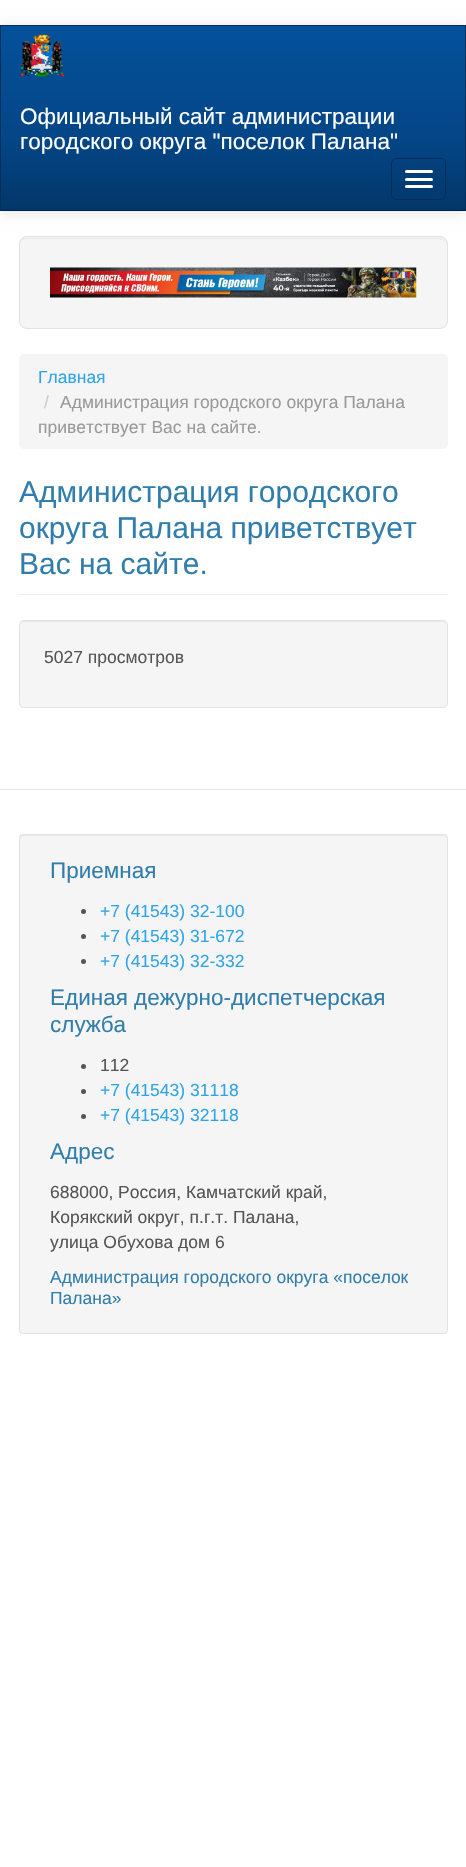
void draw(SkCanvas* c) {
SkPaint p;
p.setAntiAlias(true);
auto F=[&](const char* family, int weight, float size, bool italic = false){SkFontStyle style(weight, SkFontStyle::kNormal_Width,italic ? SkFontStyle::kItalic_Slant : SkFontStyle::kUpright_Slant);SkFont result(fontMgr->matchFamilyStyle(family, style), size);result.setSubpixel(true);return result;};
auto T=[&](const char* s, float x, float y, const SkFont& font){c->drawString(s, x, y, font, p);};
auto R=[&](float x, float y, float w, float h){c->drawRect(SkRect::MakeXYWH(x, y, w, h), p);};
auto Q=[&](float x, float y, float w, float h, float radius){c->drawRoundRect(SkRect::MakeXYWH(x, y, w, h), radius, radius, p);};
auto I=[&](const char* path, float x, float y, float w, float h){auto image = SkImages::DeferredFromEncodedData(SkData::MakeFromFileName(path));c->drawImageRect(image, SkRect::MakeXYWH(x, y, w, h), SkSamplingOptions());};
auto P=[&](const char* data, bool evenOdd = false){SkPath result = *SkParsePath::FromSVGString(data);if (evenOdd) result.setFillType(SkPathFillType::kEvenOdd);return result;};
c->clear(0xffffffff);
p.setColor(0x1a000000);
p.setMaskFilter(SkMaskFilter::MakeBlur(kNormal_SkBlurStyle, 6));
c->drawRect(SkRect::MakeXYWH(0,26,466,187),p);
p.setMaskFilter(nullptr);
{
const SkColor colors[] = {0xff04519b,0xff044687,0xff033769};
const float stops[] = {0,.6,1};
const SkPoint ends[] = {{233,26}, {233,210}};
p.setShader(SkGradientShader::MakeLinear(ends, colors, stops, 3, SkTileMode::kClamp));
p.setAlpha(255);
}
R(1,26,464,184);
p.setShader(nullptr);
p.setColor(0xff022f5a);
R(0,25,466,1);
R(465,25,1,186);
p.setColor(0xff022241);
R(0,210,466,1);
p.setColor(0xff022f5a);
R(0,25,1,186);
I("1.png",20,34,44,43);
auto f1 = F("Liberation Sans",400,22.5);
p.setColor(0xffffffff);
T("Официальный сайт администрации",20,124,f1);
T("городского округа \"поселок Палана\"",20,149,f1);
p.setStroke(true);
p.setStrokeWidth(1);
p.setColor(0xff022f5a);
c->drawRoundRect(SkRect::MakeXYWH(391.5,158.5,54,41),4.5,4.5,p);
p.setStroke(false);
p.setColor(0xffffffff);
Q(405,170,28,3,1.5);
Q(405,178,28,3,1.5);
Q(405,185,28,3,1.5);
p.setColor(0xfff5f5f5);
Q(19,236,429,93,8);
p.setColor(0xffe9e9e9);
c->drawPath(P("M26 239h414c3 0 6 3 6 6v-1c0-3-3-6-6-6h-414c-3 0-6 3-6 6v1c0-3 3-6 6-6z"),p);
p.setStroke(true);
p.setColor(0xffe3e3e3);
c->drawRoundRect(SkRect::MakeXYWH(19.5,236.5,428,92),7.5,7.5,p);
I("2.png",50,267,367,31);
p.setStroke(false);
p.setColor(0xfff5f5f5);
Q(19,354,429,95,5);
auto f2 = F("Liberation Sans",400,17.5);
p.setColor(0xff2fa4e7);
T("Главная",38,383,f2);
p.setColor(0xffcccccc);
T("/",44,408,f2);
p.setColor(0xff999999);
T("Администрация городского округа Палана",60,408,f2);
T("приветствует Вас на сайте.",38,433,f2);
p.setColor(0xffeeeeee);
R(19,594,429,1);
auto f3 = F("Liberation Sans",400,30);
p.setColor(0xff317eac);
T("Администрация городского",19,502,f3);
T("округа Палана приветствует",19,538,f3);
T("Вас на сайте.",19,574,f3);
p.setColor(0xfff5f5f5);
Q(19,620,429,88,5);
p.setColor(0xffe9e9e9);
c->drawPath(P("M24 622h418c3 0 4 2 4 4c0-3-1-5-4-5h-418c-1 0-3 1-3 2l-1 3c0-2 2-4 4-4z"),p);
p.setStroke(true);
p.setColor(0xffe3e3e3);
c->drawRoundRect(SkRect::MakeXYWH(19.5,620.5,428,87),4.5,4.5,p);
p.setStroke(false);
p.setColor(0xff555555);
T("5027 просмотров",44,663,f2);
p.setColor(0xffe5e5e5);
R(0,789,466,1);
p.setColor(0xfff5f5f5);
Q(19,834,429,500,4);
p.setColor(0xffe9e9e9);
c->drawPath(P("M22 836h422c1 0 2 1 2 3c0-2 0-4-2-4h-422l-2 1v3c0-2 1-3 2-3z"),p);
p.setStroke(true);
p.setColor(0xffe3e3e3);
c->drawRoundRect(SkRect::MakeXYWH(19.5,834.5,428,499),3.5,3.5,p);
p.setStroke(false);
p.setColor(0xff317eac);
T("Приемная",50,878,f1);
p.setColor(0xff555555);
c->drawCircle(83.5,911.5,2.5,p);
p.setColor(0xff2fa4e7);
T("+7 (41543) 32-100",100,917,f2);
p.setColor(0xff555555);
c->drawCircle(83.5,936.5,2.5,p);
p.setColor(0xff2fa4e7);
T("+7 (41543) 31-672",100,942,f2);
p.setColor(0xff555555);
c->drawCircle(83.5,961.5,2.5,p);
p.setColor(0xff2fa4e7);
T("+7 (41543) 32-332",100,967,f2);
p.setColor(0xff317eac);
T("Единая дежурно-диспетчерская",50,1005,f1);
T("служба",50,1032,f1);
p.setColor(0xff555555);
c->drawCircle(83.5,1066.5,2.5,p);
T("112",100,1071,f2);
c->drawCircle(83.5,1091.5,2.5,p);
p.setColor(0xff2fa4e7);
T("+7 (41543) 31118",100,1096,f2);
p.setColor(0xff555555);
c->drawCircle(83.5,1116.5,2.5,p);
p.setColor(0xff2fa4e7);
T("+7 (41543) 32118",100,1121,f2);
p.setColor(0xff317eac);
T("Адрес",50,1159,f1);
p.setColor(0xff555555);
T("688000, Россия, Камчатский край,",50,1198,f2);
T("Корякский округ, п.г.т. Палана,",50,1223,f2);
T("улица Обухова дом 6",50,1248,f2);
p.setColor(0xff317eac);
T("Администрация городского округа «поселок",50,1283,f2);
T("Палана»",50,1304,f2);
}
